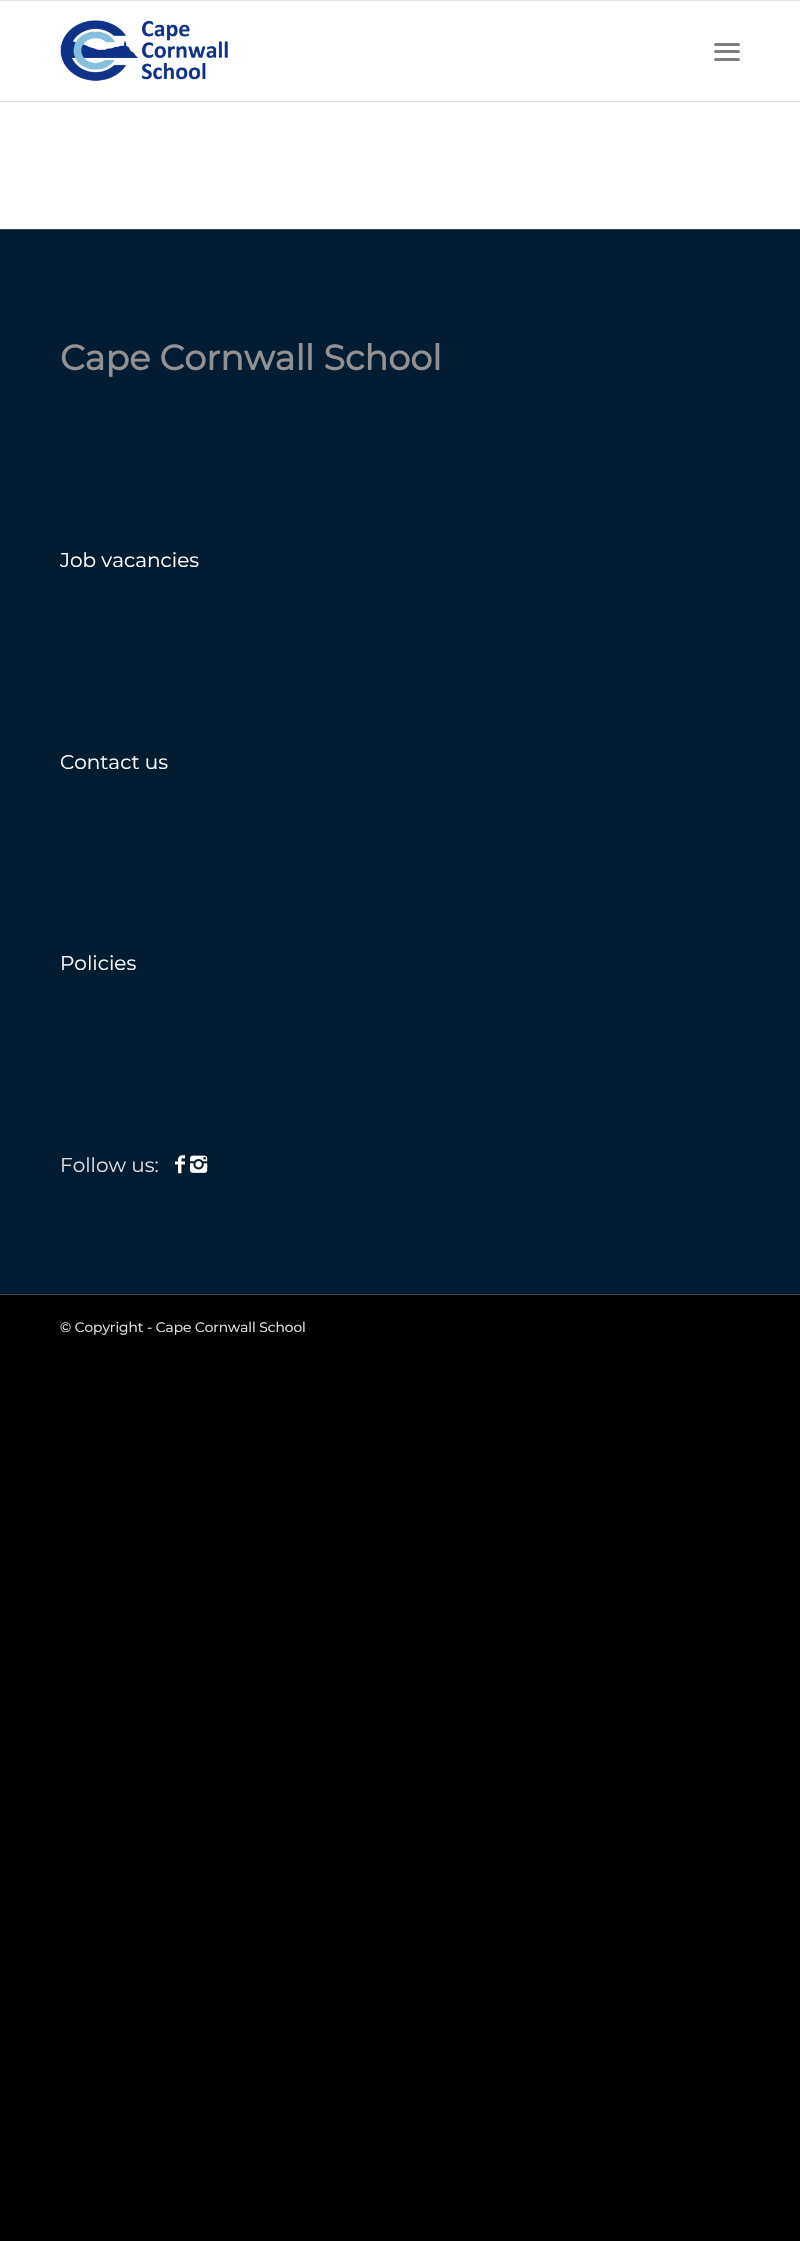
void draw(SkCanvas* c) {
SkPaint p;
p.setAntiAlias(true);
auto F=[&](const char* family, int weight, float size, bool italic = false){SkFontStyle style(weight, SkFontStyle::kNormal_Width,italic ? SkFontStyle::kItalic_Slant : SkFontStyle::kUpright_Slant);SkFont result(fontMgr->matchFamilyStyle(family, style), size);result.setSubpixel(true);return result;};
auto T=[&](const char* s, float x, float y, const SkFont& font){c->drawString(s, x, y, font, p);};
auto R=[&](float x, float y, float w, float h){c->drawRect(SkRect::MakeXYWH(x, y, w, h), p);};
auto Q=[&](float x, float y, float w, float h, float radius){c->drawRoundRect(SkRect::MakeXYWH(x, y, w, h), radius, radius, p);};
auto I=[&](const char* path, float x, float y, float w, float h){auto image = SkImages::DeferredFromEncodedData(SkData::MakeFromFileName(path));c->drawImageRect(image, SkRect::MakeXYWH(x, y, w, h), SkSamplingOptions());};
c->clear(0xff000000);
p.setColor(0xffffffff);
R(0,1,800,228);
p.setColor(0xffe1e1e1);
R(0,0,800,1);
R(0,101,800,1);
I("1.png",60,20,168,61);
p.setColor(0xff808080);
Q(714,50,26,3,1.5);
Q(714,43,26,3,1.5);
Q(714,58,26,3,1.5);
p.setColor(0xff021c31);
R(0,230,800,1064);
p.setColor(0xff444444);
R(0,229,800,1);
auto f1 = F("Montserrat",700,35);
p.setColor(0xff919191);
T("Cape Cornwall School",60,370,f1);
auto f2 = F("Montserrat",100,20);
p.setColor(0xffffffff);
T("Job vacancies",60,567,f2);
T("Contact us",60,769,f2);
T("Policies",60,970,f2);
p.setColor(0xffdddddd);
T("Follow us:",60,1172,f2);
I("2.png",175,1155,10,19);
I("3.png",190,1155,18,18);
p.setColor(0xff444444);
R(0,1294,800,1);
auto f3 = F("Montserrat",100,13.75);
p.setColor(0xffeeeeee);
T("© Copyright - Cape Cornwall School",60,1332,f3);
}
